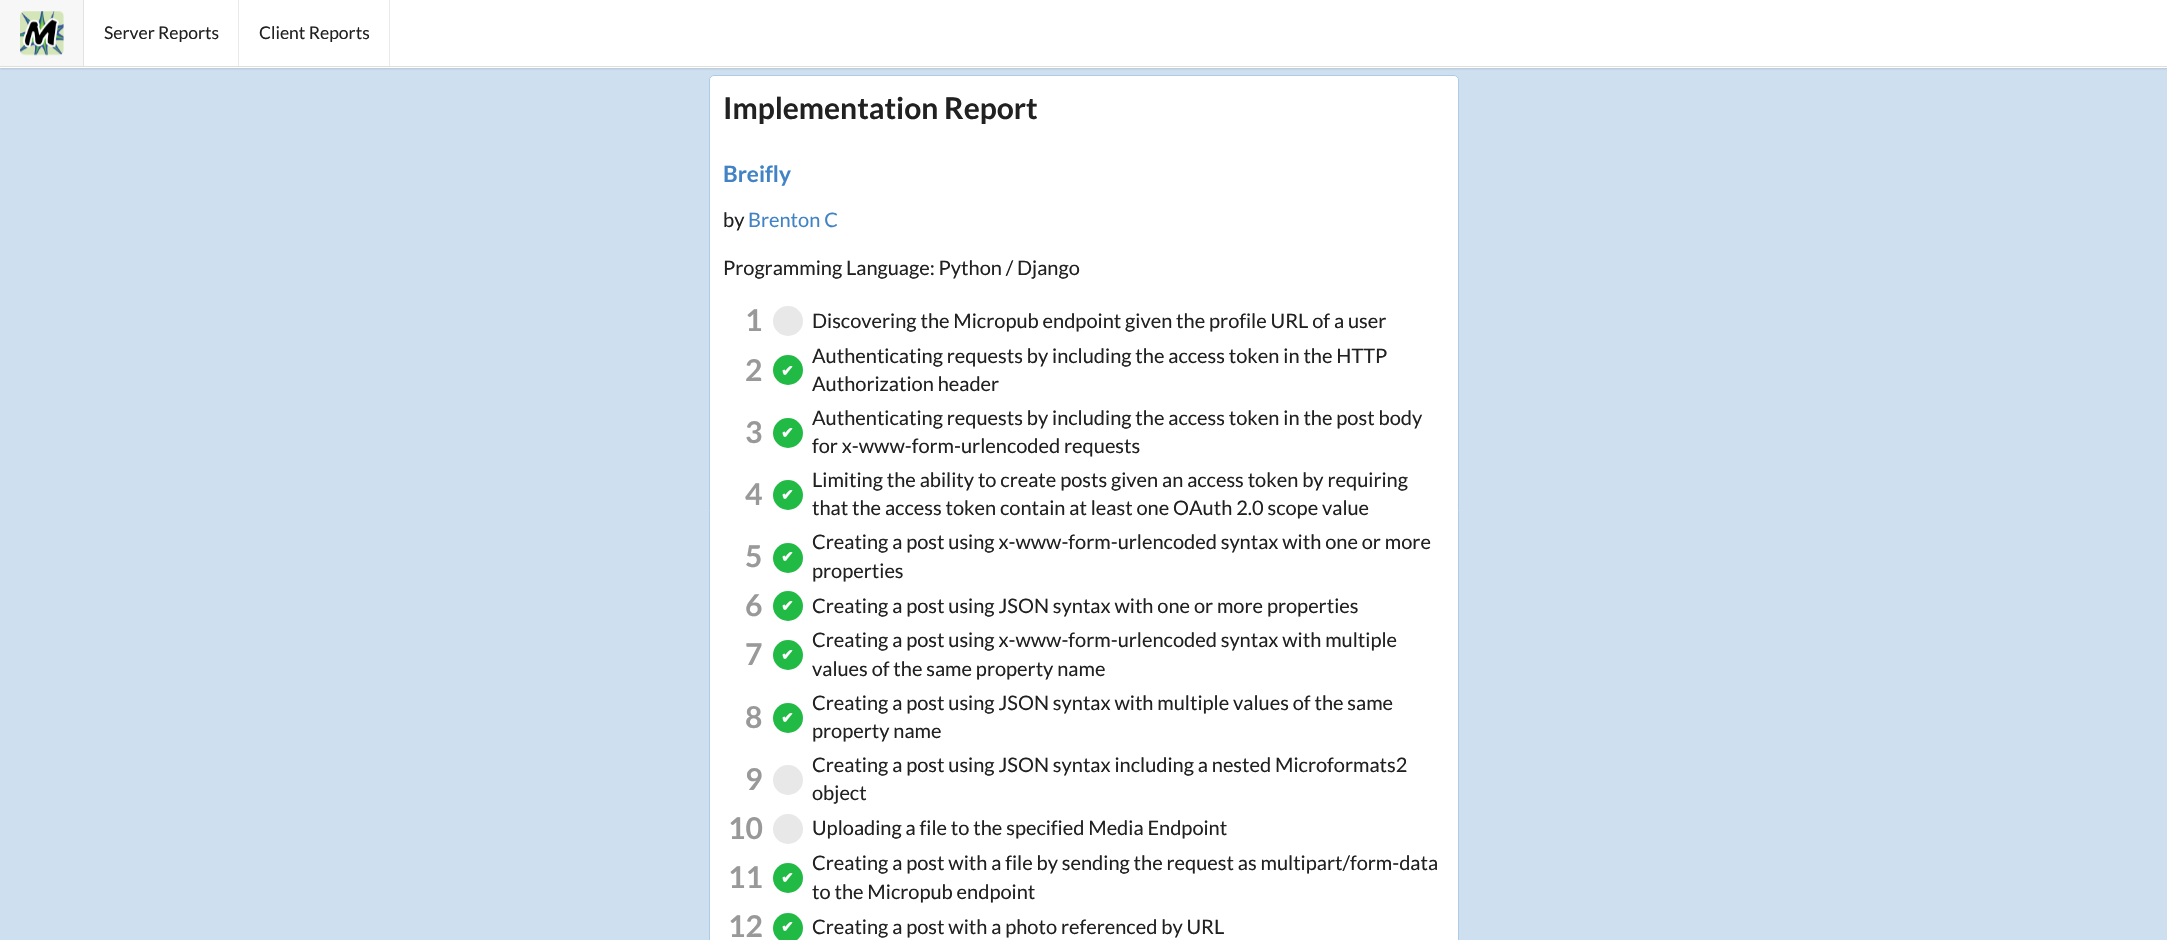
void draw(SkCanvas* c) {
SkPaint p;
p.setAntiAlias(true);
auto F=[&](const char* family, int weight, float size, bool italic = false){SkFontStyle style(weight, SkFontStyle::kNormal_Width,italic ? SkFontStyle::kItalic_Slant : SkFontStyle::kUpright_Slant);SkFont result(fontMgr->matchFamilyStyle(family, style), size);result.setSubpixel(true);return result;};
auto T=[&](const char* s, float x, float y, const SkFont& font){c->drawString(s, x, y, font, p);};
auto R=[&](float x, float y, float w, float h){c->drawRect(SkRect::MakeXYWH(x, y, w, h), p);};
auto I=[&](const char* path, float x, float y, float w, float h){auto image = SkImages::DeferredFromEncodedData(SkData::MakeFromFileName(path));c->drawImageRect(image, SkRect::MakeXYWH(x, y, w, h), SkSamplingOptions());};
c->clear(0xffcee0f0);
p.setColor(0x26222426);
p.setMaskFilter(SkMaskFilter::MakeBlur(kNormal_SkBlurStyle, 1));
c->drawRect(SkRect::MakeXYWH(0,1,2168,68),p);
p.setMaskFilter(nullptr);
p.setColor(0xffffffff);
R(0,0,2167,68);
p.setColor(0xffdedede);
R(0,66,2167,1);
p.setColor(0xfff7f7f7);
R(0,0,83,66);
I("1.png",20,11,44,45);
p.setColor(0xffe2e2e2);
R(83,0,1,66);
auto f1 = F("Lato",400,17.5);
p.setColor(0xff212121);
T("Server Reports",104,39,f1);
p.setColor(0xffe9e9e9);
R(238,0,1,66);
p.setColor(0xff212121);
T("Client Reports",259,39,f1);
p.setColor(0xffe9e9e9);
R(389,0,1,66);
p.setColor(0xffffffff);
c->drawRoundRect(SkRect::MakeXYWH(709.5,75.5,749,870),4.5,4.5,p);
p.setStroke(true);
p.setStrokeWidth(1);
p.setColor(0xffabcce9);
c->drawRoundRect(SkRect::MakeXYWH(709.5,75.5,749,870),4.5,4.5,p);
auto f2 = F("Lato",700,30);
p.setStroke(false);
p.setColor(0xff212121);
T("Implementation Report",723,119,f2);
auto f3 = F("Lato",700,22.5);
p.setColor(0xff4183c4);
T("Breifly",723,182,f3);
auto f4 = F("Lato",400,20);
p.setColor(0xff212121);
T("by",723,227,f4);
p.setColor(0xff4183c4);
T("Brenton C",748,227,f4);
p.setColor(0xff212121);
T("Programming Language: Python / Django",723,275,f4);
p.setColor(0xff999999);
T("1",745,331,f2);
p.setColor(0xffe8e8e8);
c->drawCircle(788,321,15,p);
p.setColor(0xff212121);
T("Discovering the Micropub endpoint given the profile URL of a user",812,328,f4);
p.setColor(0xff999999);
T("2",745,381,f2);
p.setColor(0xff21ba45);
c->drawCircle(788,370,15,p);
auto f5 = F("DejaVu Sans",700,15);
p.setColor(0xffffffff);
T("✔",781,376,f5);
p.setColor(0xff212121);
T("Authenticating requests by including the access token in the HTTP",812,363,f4);
T("Authorization header",812,391,f4);
p.setColor(0xff999999);
T("3",745,443,f2);
p.setColor(0xff21ba45);
c->drawCircle(788,433,15,p);
p.setColor(0xffffffff);
T("✔",781,438,f5);
p.setColor(0xff212121);
T("Authenticating requests by including the access token in the post body",812,425,f4);
T("for x-www-form-urlencoded requests",812,453,f4);
p.setColor(0xff999999);
T("4",745,505,f2);
p.setColor(0xff21ba45);
c->drawCircle(788,495,15,p);
p.setColor(0xffffffff);
T("✔",781,500,f5);
p.setColor(0xff212121);
T("Limiting the ability to create posts given an access token by requiring",812,487,f4);
T("that the access token contain at least one OAuth 2.0 scope value",812,515,f4);
p.setColor(0xff999999);
T("5",745,567,f2);
p.setColor(0xff21ba45);
c->drawCircle(788,558,15,p);
p.setColor(0xffffffff);
T("✔",781,562,f5);
p.setColor(0xff212121);
T("Creating a post using x-www-form-urlencoded syntax with one or more",812,549,f4);
T("properties",812,578,f4);
p.setColor(0xff999999);
T("6",745,616,f2);
p.setColor(0xff21ba45);
c->drawCircle(788,606,15,p);
p.setColor(0xffffffff);
T("✔",781,611,f5);
p.setColor(0xff212121);
T("Creating a post using JSON syntax with one or more properties",812,613,f4);
p.setColor(0xff999999);
T("7",745,665,f2);
p.setColor(0xff21ba45);
c->drawCircle(788,655,15,p);
p.setColor(0xffffffff);
T("✔",781,660,f5);
p.setColor(0xff212121);
T("Creating a post using x-www-form-urlencoded syntax with multiple",812,647,f4);
T("values of the same property name",812,676,f4);
p.setColor(0xff999999);
T("8",745,728,f2);
p.setColor(0xff21ba45);
c->drawCircle(788,718,15,p);
p.setColor(0xffffffff);
T("✔",781,723,f5);
p.setColor(0xff212121);
T("Creating a post using JSON syntax with multiple values of the same",812,710,f4);
T("property name",812,738,f4);
p.setColor(0xff999999);
T("9",745,790,f2);
p.setColor(0xffe8e8e8);
c->drawCircle(788,780,15,p);
p.setColor(0xff212121);
T("Creating a post using JSON syntax including a nested Microformats2",812,772,f4);
T("object",812,800,f4);
p.setColor(0xff999999);
T("10",728,839,f2);
p.setColor(0xffe8e8e8);
c->drawCircle(788,829,15,p);
p.setColor(0xff212121);
T("Uploading a file to the specified Media Endpoint",812,835,f4);
p.setColor(0xff999999);
T("11",728,888,f2);
p.setColor(0xff21ba45);
c->drawCircle(788,878,15,p);
p.setColor(0xffffffff);
T("✔",781,883,f5);
p.setColor(0xff212121);
T("Creating a post with a file by sending the request as multipart/form-data",812,870,f4);
T("to the Micropub endpoint",812,899,f4);
p.setColor(0xff999999);
T("12",728,937,f2);
p.setColor(0xff21ba45);
c->drawCircle(788,928,15,p);
p.setColor(0xffffffff);
T("✔",781,932,f5);
p.setColor(0xff212121);
T("Creating a post with a photo referenced by URL",812,934,f4);
}
